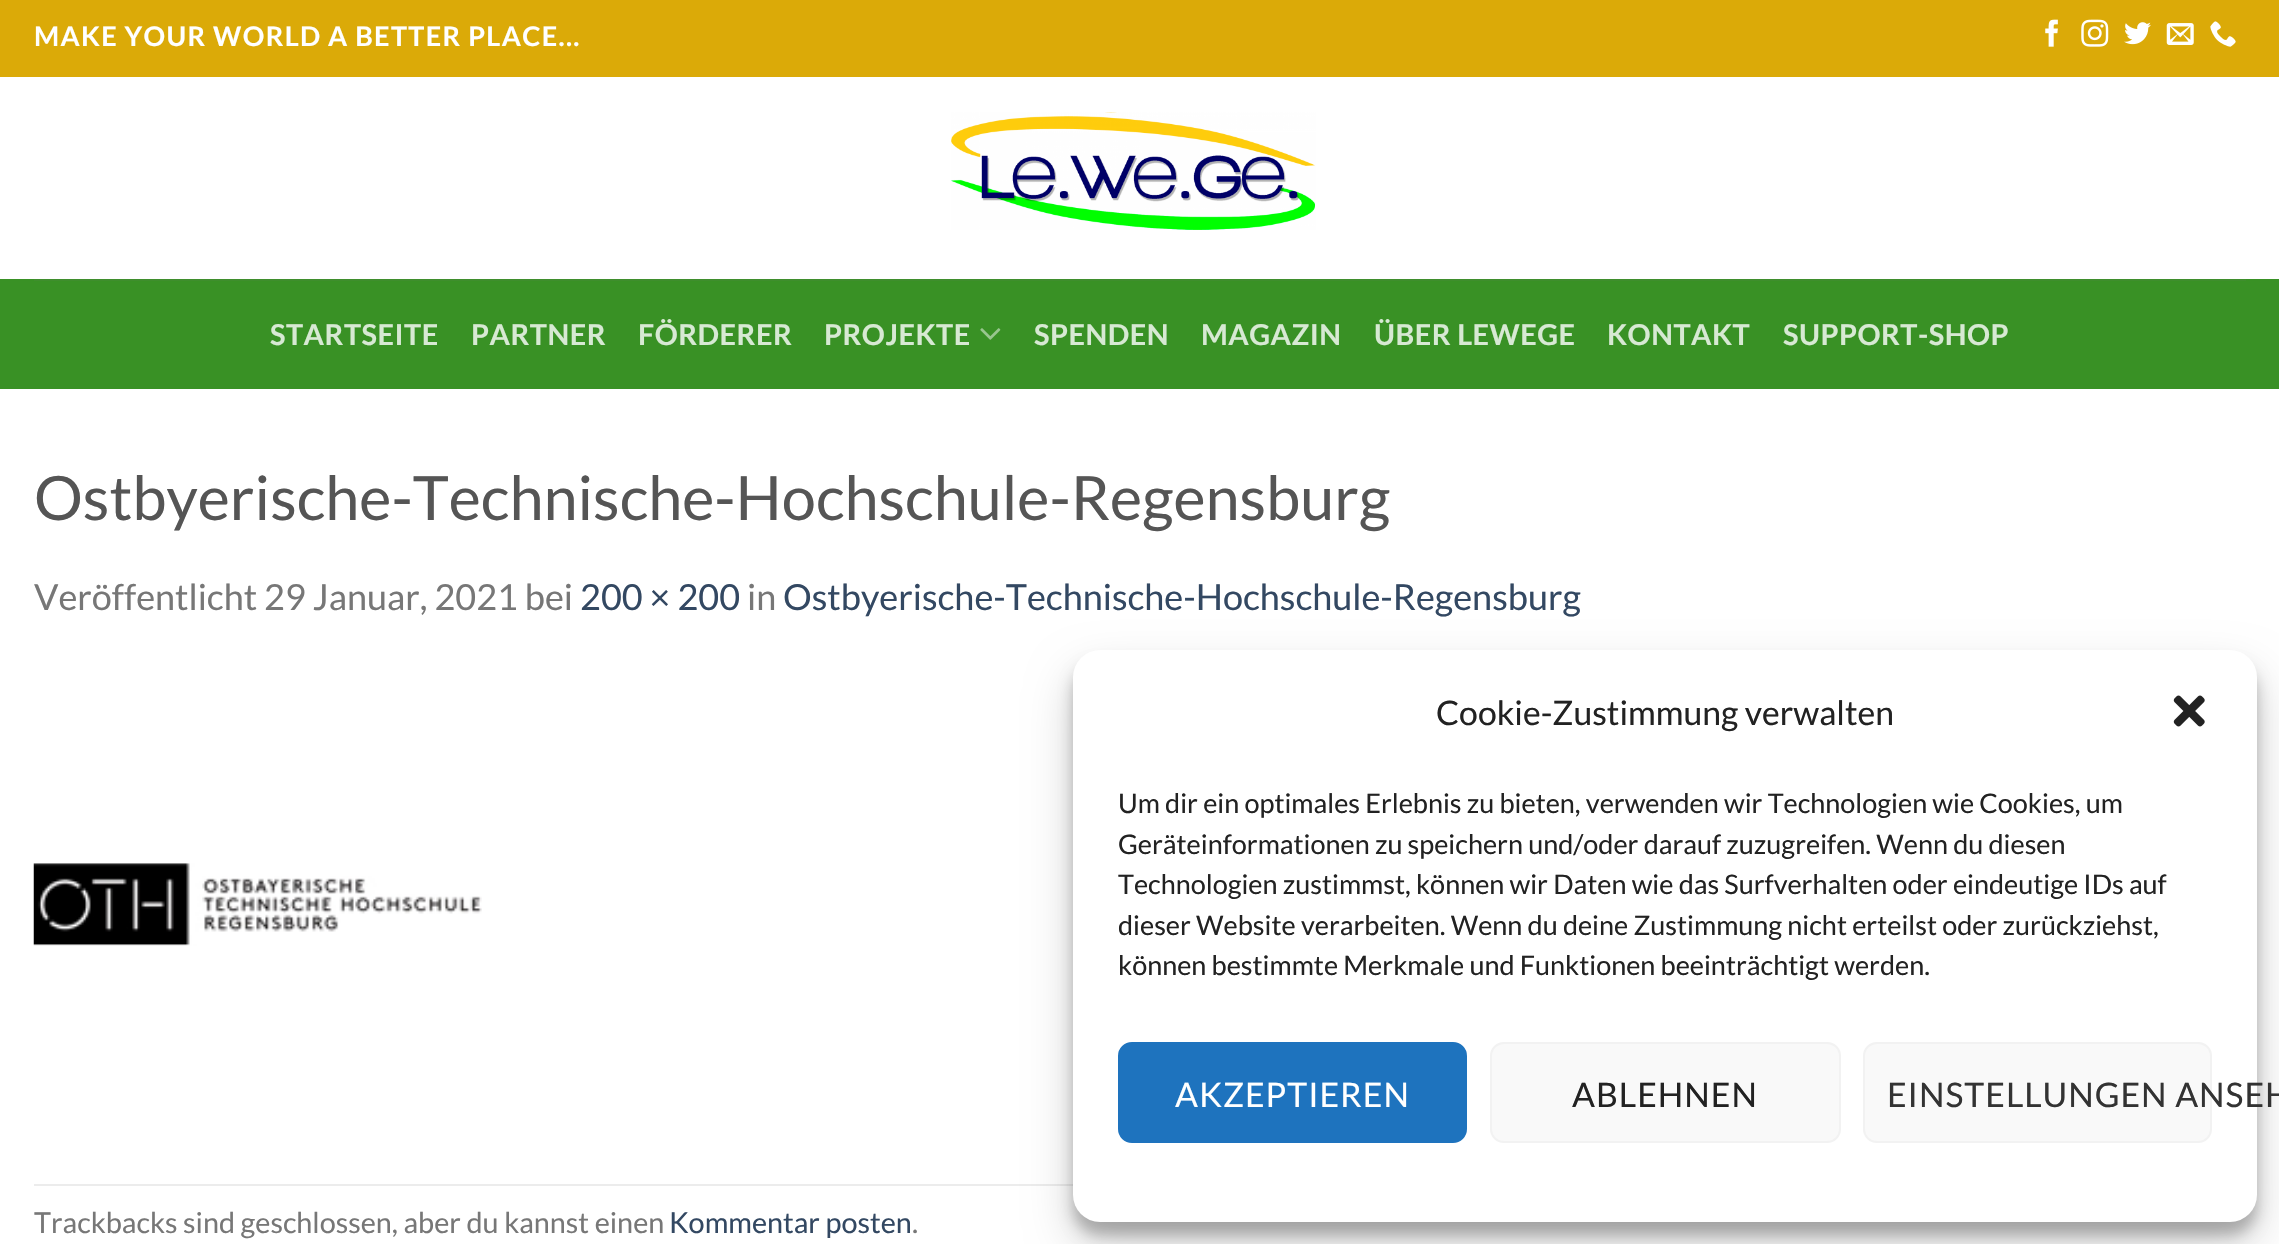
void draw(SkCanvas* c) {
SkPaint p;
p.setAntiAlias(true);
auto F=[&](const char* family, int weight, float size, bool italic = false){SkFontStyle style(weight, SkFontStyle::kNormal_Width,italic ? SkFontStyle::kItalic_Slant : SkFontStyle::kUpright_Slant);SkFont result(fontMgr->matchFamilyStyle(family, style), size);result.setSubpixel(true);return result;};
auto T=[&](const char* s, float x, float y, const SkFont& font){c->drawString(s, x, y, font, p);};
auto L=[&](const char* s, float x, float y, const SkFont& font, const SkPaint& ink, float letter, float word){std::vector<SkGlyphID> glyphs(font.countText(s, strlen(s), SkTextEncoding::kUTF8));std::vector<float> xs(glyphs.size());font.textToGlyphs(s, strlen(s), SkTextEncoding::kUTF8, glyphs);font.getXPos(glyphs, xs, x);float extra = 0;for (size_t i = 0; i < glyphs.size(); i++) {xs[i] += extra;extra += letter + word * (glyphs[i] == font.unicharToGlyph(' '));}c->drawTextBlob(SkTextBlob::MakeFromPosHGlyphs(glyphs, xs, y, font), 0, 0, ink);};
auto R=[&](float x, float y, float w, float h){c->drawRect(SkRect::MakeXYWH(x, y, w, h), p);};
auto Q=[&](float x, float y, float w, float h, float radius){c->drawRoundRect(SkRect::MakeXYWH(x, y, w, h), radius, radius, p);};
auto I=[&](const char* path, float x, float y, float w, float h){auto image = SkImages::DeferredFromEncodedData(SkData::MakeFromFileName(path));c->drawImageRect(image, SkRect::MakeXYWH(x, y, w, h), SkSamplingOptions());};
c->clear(0xffffffff);
p.setColor(0xffdbaa08);
R(0,0,2279,77);
auto f1 = F("Lato",700,27);
p.setColor(0xffffffff);
L("MAKE YOUR WORLD A BETTER PLACE...",34,46,f1,p,1.35,0);
I("1.png",2045,19,13,28);
I("2.png",2081,19,28,28);
I("3.png",2124,22,27,23);
I("4.png",2166,23,28,22);
I("5.png",2210,21,26,26);
I("6.png",951,112,365,118);
p.setColor(0xff399125);
R(0,279,2279,110);
p.setColor(0xff3f8e2d);
R(34,279,2212,2);
auto f2 = F("Lato",700,28.8);
p.setColor(0xffd7e9d3);
L("STARTSEITE",270,345,f2,p,.5,0);
L("PARTNER",471,345,f2,p,.5,0);
L("FÖRDERER",638,345,f2,p,.5,0);
L("PROJEKTE",824,345,f2,p,.5,0);
I("7.png",980,328,21,12);
L("SPENDEN",1034,345,f2,p,.5,0);
L("MAGAZIN",1201,345,f2,p,.5,0);
L("ÜBER LEWEGE",1374,345,f2,p,.5,0);
L("KONTAKT",1607,345,f2,p,.5,0);
L("SUPPORT-SHOP",1783,345,f2,p,.5,0);
auto f3 = F("Lato",400,61.2);
p.setColor(0xff555555);
T("Ostbyerische-Technische-Hochschule-Regensburg",34,520,f3);
auto f4 = F("Lato",400,36);
p.setColor(0xff777777);
T("Veröffentlicht 29 Januar, 2021 bei",34,610,f4);
p.setColor(0xff334862);
T("200 × 200",580,610,f4);
p.setColor(0xff777777);
T("in",747,610,f4);
p.setColor(0xff334862);
T("Ostbyerische-Technische-Hochschule-Regensburg",783,610,f4);
I("8.png",33,863,449,83);
p.setColor(0xffececec);
R(34,1184,1039,2);
auto f5 = F("Lato",400,28.8);
p.setColor(0xff777777);
T("Trackbacks sind geschlossen, aber du kannst einen",34,1233,f5);
p.setColor(0xff334862);
T("Kommentar posten",669,1233,f5);
p.setColor(0xff777777);
T(".",912,1233,f5);
p.setColor(0x3b000000);
p.setMaskFilter(SkMaskFilter::MakeBlur(kNormal_SkBlurStyle, 7));
c->drawRoundRect(SkRect::MakeXYWH(1073,664,1184,571),27,27,p);
p.setMaskFilter(nullptr);
p.setColor(0x30000000);
p.setMaskFilter(SkMaskFilter::MakeBlur(kNormal_SkBlurStyle, 22.5));
c->drawRoundRect(SkRect::MakeXYWH(1073,673,1184,571),27,27,p);
p.setMaskFilter(nullptr);
p.setColor(0xffffffff);
Q(1073,650,1184,572,27);
auto f6 = F("Lato",400,33.75);
p.setColor(0xff222222);
T("Cookie-Zustimmung verwalten",1436,725,f6);
I("9.png",2173,695,32,32);
auto f7 = F("Lato",400,27);
T("Um dir ein optimales Erlebnis zu bieten, verwenden wir Technologien wie Cookies, um",1118,813,f7);
T("Geräteinformationen zu speichern und/oder darauf zuzugreifen. Wenn du diesen",1118,854,f7);
T("Technologien zustimmst, können wir Daten wie das Surfverhalten oder eindeutige IDs auf",1118,894,f7);
T("dieser Website verarbeiten. Wenn du deine Zustimmung nicht erteilst oder zurückziehst,",1118,935,f7);
T("können bestimmte Merkmale und Funktionen beeinträchtigt werden.",1118,975,f7);
p.setColor(0xff1e73be);
c->drawRoundRect(SkRect::MakeXYWH(1119,1043,347,99),13,13,p);
p.setStroke(true);
p.setStrokeWidth(2);
c->drawRoundRect(SkRect::MakeXYWH(1119,1043,347,99),13,13,p);
p.setStroke(false);
p.setColor(0xffffffff);
L("AKZEPTIEREN",1175,1107,f6,p,1,0);
p.setColor(0xfff9f9f9);
c->drawRoundRect(SkRect::MakeXYWH(1491,1043,349,99),13,13,p);
p.setStroke(true);
p.setColor(0xfff2f2f2);
c->drawRoundRect(SkRect::MakeXYWH(1491,1043,349,99),13,13,p);
p.setStroke(false);
p.setColor(0xff222222);
L("ABLEHNEN",1572,1107,f6,p,1,0);
p.setColor(0xfff9f9f9);
c->drawRoundRect(SkRect::MakeXYWH(1864,1043,347,99),13,13,p);
p.setStroke(true);
p.setColor(0xfff2f2f2);
c->drawRoundRect(SkRect::MakeXYWH(1864,1043,347,99),13,13,p);
p.setStroke(false);
p.setColor(0xff333333);
L("EINSTELLUNGEN ANSEH",1887,1107,f6,p,1,0);
}
